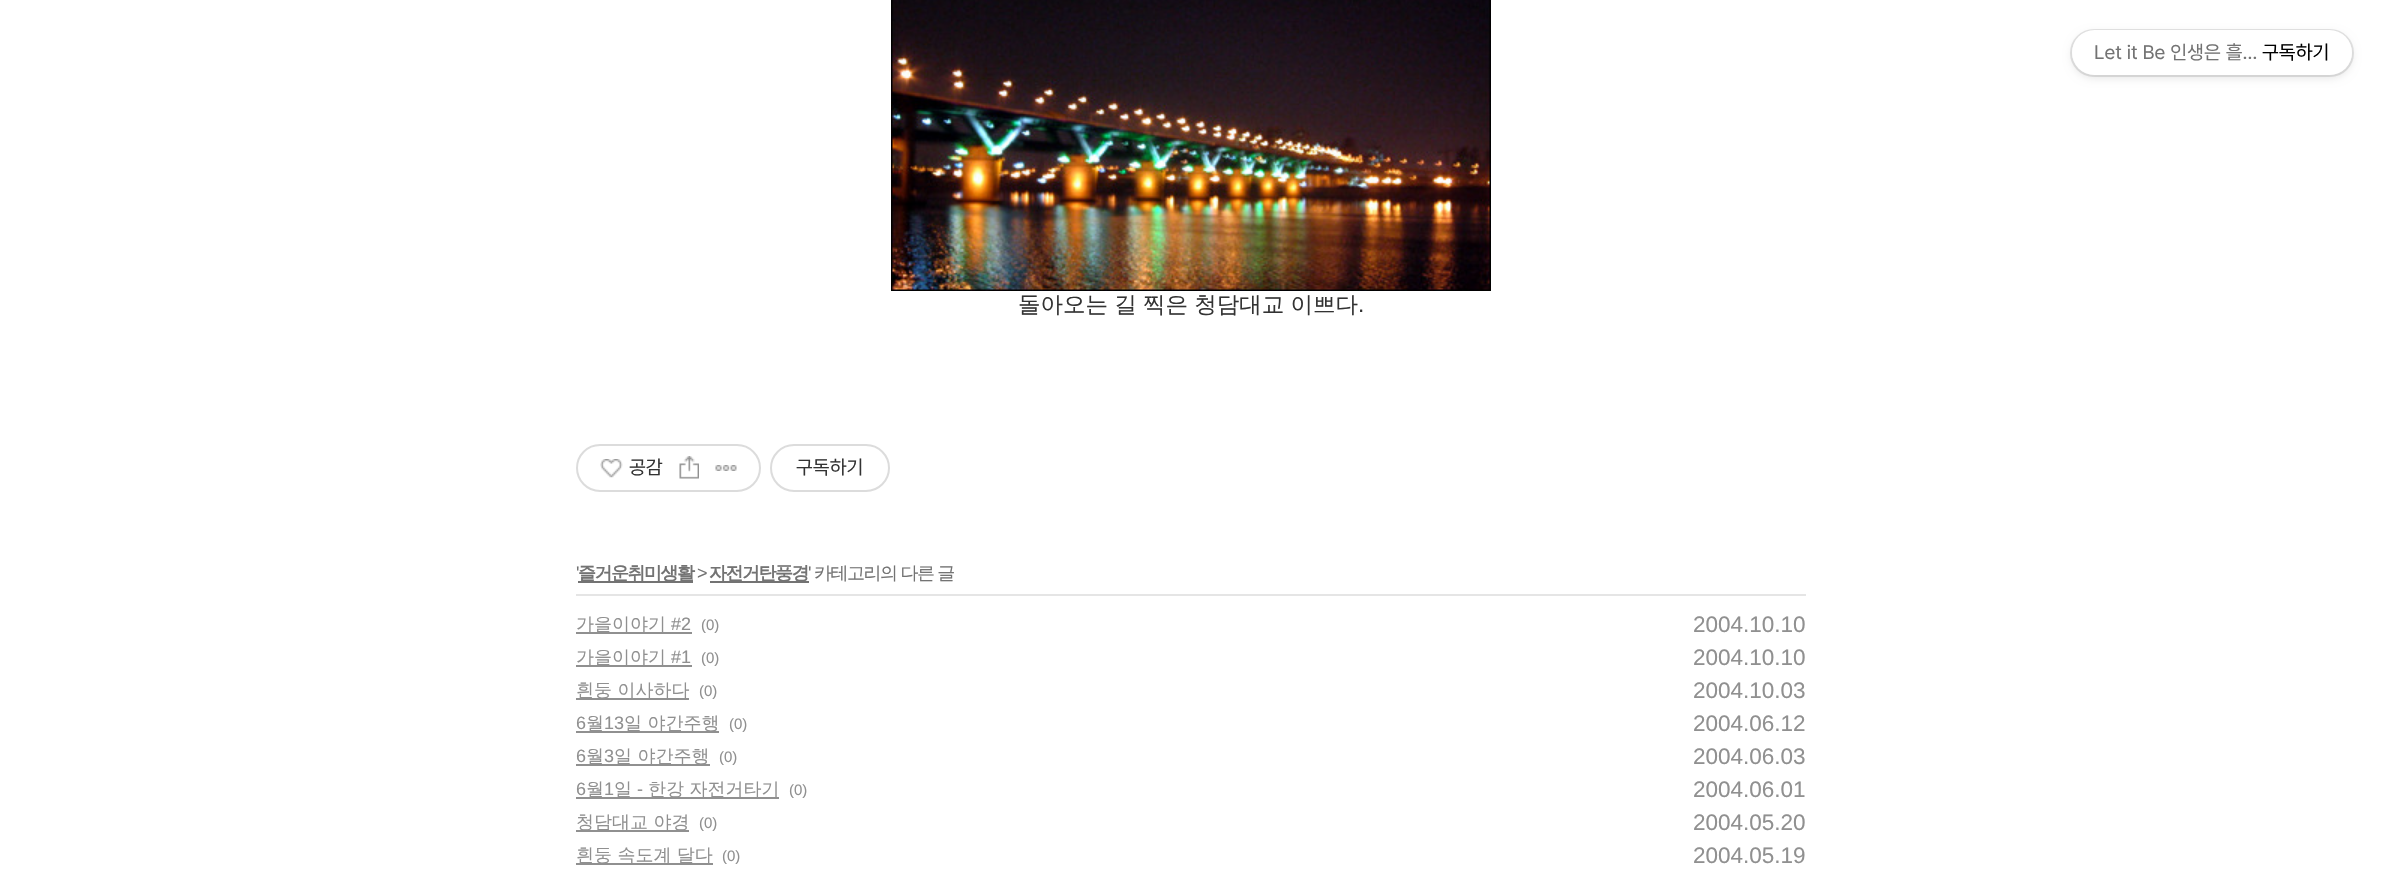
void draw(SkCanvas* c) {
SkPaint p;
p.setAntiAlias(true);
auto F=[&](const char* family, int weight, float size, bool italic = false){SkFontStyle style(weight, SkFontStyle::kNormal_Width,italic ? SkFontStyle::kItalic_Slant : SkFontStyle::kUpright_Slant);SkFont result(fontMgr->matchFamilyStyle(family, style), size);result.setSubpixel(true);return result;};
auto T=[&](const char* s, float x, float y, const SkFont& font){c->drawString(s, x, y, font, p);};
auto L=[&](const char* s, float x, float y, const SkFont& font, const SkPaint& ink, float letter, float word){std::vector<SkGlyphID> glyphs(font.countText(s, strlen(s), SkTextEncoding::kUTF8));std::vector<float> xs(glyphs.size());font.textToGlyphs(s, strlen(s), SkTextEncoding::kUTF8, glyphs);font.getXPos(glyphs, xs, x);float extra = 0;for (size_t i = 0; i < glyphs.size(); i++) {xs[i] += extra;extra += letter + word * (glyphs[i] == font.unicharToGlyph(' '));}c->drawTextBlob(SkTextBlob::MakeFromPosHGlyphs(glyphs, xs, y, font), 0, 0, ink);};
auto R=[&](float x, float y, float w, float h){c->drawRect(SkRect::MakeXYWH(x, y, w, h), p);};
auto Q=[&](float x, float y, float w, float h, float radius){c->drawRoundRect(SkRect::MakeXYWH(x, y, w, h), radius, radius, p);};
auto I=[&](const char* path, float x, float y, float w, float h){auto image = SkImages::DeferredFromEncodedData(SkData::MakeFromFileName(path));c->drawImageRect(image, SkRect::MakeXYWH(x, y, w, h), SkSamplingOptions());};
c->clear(0xffffffff);
p.setColor(0x1a000000);
p.setMaskFilter(SkMaskFilter::MakeBlur(kNormal_SkBlurStyle, 4));
c->drawRoundRect(SkRect::MakeXYWH(2072,33,280,45),22.5,22.5,p);
p.setMaskFilter(nullptr);
p.setStroke(true);
p.setStrokeWidth(2);
c->drawRoundRect(SkRect::MakeXYWH(2071,30,282,46),23,23,p);
p.setStroke(false);
p.setColor(0xffffffff);
Q(2072,30,280,45,22.5);
auto f1 = F("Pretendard",400,19.5);
p.setColor(0xff737373);
T("Let it Be 인생은 흘…",2094,59,f1);
p.setColor(0xff000000);
T("구독하기",2262,59,f1);
I("1.png",891,0,600,291);
auto f2 = F("WenQuanYi Zen Hei",500,22.5);
p.setColor(0xff333333);
L("돌아오는 길 찍은 청담대교 이쁘다",1018,312,f2,p,0,-.5);
auto f3 = F("Liberation Sans",400,22.5);
T(".",1358,312,f3);
p.setStroke(true);
p.setColor(0xffdcdcdc);
c->drawRoundRect(SkRect::MakeXYWH(577,445,183,46),23,23,p);
I("2.png",600,459,23,19);
p.setStroke(false);
p.setColor(0xff333333);
T("공감",629,474,f1);
I("3.png",679,456,20,23);
I("4.png",715,465,22,6);
p.setStroke(true);
p.setColor(0xffdcdcdc);
c->drawRoundRect(SkRect::MakeXYWH(771,445,118,46),23,23,p);
p.setStroke(false);
p.setColor(0xff333333);
T("구독하기",796,474,f1);
p.setColor(0xffe5e5e5);
R(576,594,1230,2);
auto f4 = F("Liberation Sans",400,18);
p.setColor(0xff737373);
L("'",576,579,f4,p,-1.5,0);
R(578,581,115,2);
auto f5 = F("WenQuanYi Zen Hei",700,18);
L("즐거운취미생활",578,579,f5,p,-1.5,0);
L(">",697,579,f4,p,-1.5,0);
R(710,581,99,2);
L("자전거탄풍경",709,579,f5,p,-1.5,0);
L("'",808,579,f4,p,-1.5,0);
auto f6 = F("WenQuanYi Zen Hei",500,18);
L("카테고리의 다른 글",814,579,f6,p,-1.5,0);
p.setColor(0xff909090);
R(576,632,116,2);
T("가을이야기",576,630,f6);
T("#2",671,630,f4);
auto f7 = F("Liberation Sans",400,15);
T("(0)",701,630,f7);
T("2004.10.10",1693,632,f3);
R(576,665,116,2);
T("가을이야기",576,663,f6);
T("#1",671,663,f4);
T("(0)",701,663,f7);
T("2004.10.10",1693,665,f3);
R(576,698,113,2);
T("흰둥 이사하다",576,696,f6);
T("(0)",699,696,f7);
T("2004.10.03",1693,698,f3);
T("6",576,729,f4);
R(576,731,143,2);
T("월",586,729,f6);
T("13",604,729,f4);
T("일 야간주행",624,729,f6);
T("(0)",729,729,f7);
T("2004.06.12",1693,731,f3);
T("6",576,762,f4);
R(576,764,134,2);
T("월",586,762,f6);
T("3",604,762,f4);
T("일 야간주행",614,762,f6);
T("(0)",719,762,f7);
T("2004.06.03",1693,764,f3);
T("6",576,795,f4);
R(576,797,203,2);
T("월",586,795,f6);
T("1",604,795,f4);
T("일",614,795,f6);
T("-",637,795,f4);
T("한강 자전거타기",648,795,f6);
T("(0)",789,795,f7);
T("2004.06.01",1693,797,f3);
R(576,830,113,2);
T("청담대교 야경",576,828,f6);
T("(0)",699,828,f7);
T("2004.05.20",1693,830,f3);
R(576,863,137,2);
T("흰둥 속도계 달다",576,861,f6);
T("(0)",722,861,f7);
T("2004.05.19",1693,863,f3);
}
